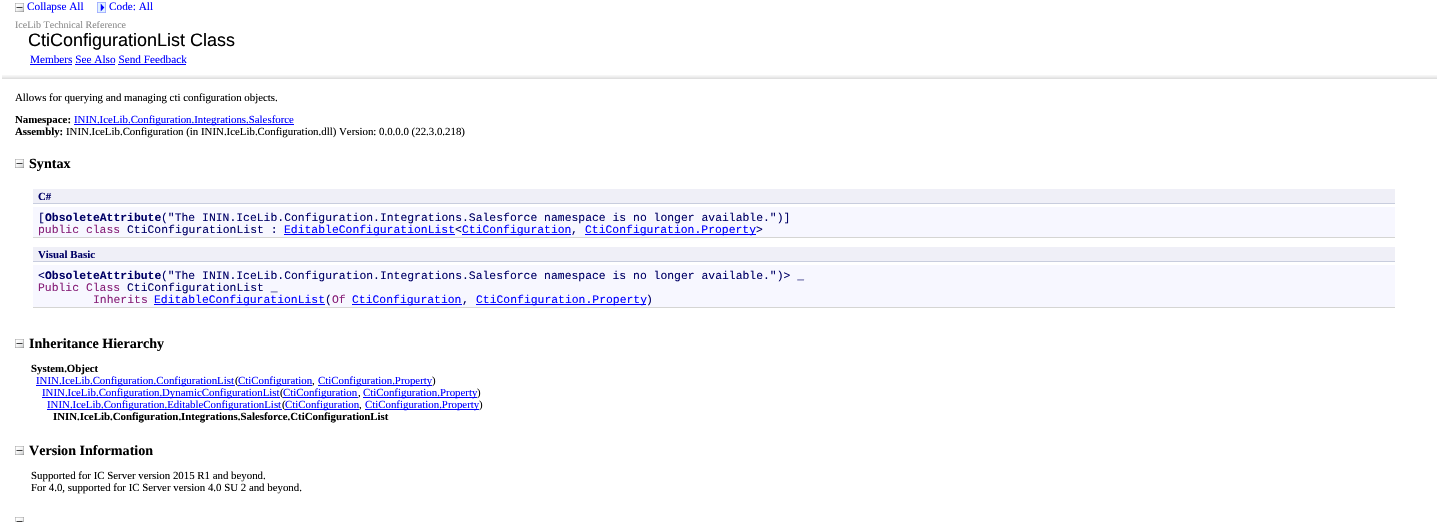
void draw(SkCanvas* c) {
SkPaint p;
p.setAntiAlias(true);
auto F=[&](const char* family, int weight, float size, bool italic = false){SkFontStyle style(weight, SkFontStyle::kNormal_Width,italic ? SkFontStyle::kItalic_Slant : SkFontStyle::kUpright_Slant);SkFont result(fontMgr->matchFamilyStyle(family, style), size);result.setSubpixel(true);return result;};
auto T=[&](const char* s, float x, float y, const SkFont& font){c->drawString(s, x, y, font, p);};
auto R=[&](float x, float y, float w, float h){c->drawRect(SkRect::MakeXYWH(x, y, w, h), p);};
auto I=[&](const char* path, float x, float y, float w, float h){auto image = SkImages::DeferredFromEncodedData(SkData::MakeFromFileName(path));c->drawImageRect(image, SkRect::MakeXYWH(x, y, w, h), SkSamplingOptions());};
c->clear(0xffffffff);
I("1.png",15,3,9,9);
auto f1 = F("Liberation Serif",400,11.25);
p.setColor(0xff0000ff);
T("Collapse All",27,10,f1);
I("2.png",97,2,9,11);
T("Code: All",109,10,f1);
auto f2 = F("Liberation Serif",400,10);
p.setColor(0xff8c8c8c);
T("IceLib Technical Reference",15,28,f2);
auto f3 = F("Liberation Sans",400,18);
p.setColor(0xff000000);
T("CtiConfigurationList Class",28,46,f3);
p.setColor(0xff0000ff);
T("Members See Also Send Feedback",30,63,f1);
R(30,64,42,1);
R(75,64,40,1);
R(118,64,68,1);
I("3.png",2,75,1435,4);
auto f4 = F("Liberation Serif",400,10.85);
p.setColor(0xff000000);
T("Allows for querying and managing cti configuration objects.",15,101,f4);
auto f5 = F("Liberation Serif",700,10.85);
T("Namespace:",15,123,f5);
p.setColor(0xff0000ff);
R(74,124,220,1);
T("ININ.IceLib.Configuration.Integrations.Salesforce",74,123,f4);
p.setColor(0xff000000);
T("Assembly:",15,135,f5);
T("ININ.IceLib.Configuration (in ININ.IceLib.Configuration.dll) Version: 0.0.0.0 (22.3.0.218)",66,135,f4);
I("1.png",15,159,9,9);
auto f6 = F("Liberation Serif",700,14.1);
T("Syntax",29,168,f6);
p.setColor(0xffefeff7);
R(33,189,1362,14);
p.setColor(0xffc8cdde);
R(33,203,1362,1);
p.setColor(0xff000066);
T("C#",38,200,f5);
p.setColor(0xfff7f7ff);
R(33,207,1362,30);
p.setColor(0xffd5d5d3);
R(33,237,1362,1);
auto f7 = F("Liberation Mono",400,11.4);
p.setColor(0xff000066);
T("[",38,221,f7);
auto f8 = F("Liberation Mono",700,11.4);
T("ObsoleteAttribute",45,221,f8);
T("(\"The ININ.IceLib.Configuration.Integrations.Salesforce namespace is no longer available.\")]",161,221,f7);
p.setColor(0xff871f78);
T("public class",38,233,f7);
p.setColor(0xff000066);
T("CtiConfigurationList :",127,233,f7);
p.setColor(0xff0000ff);
R(284,234,171,1);
T("EditableConfigurationList",284,233,f7);
p.setColor(0xff000066);
T("<",455,233,f7);
p.setColor(0xff0000ff);
R(462,234,109,1);
T("CtiConfiguration",462,233,f7);
p.setColor(0xff000066);
T(",",571,233,f7);
p.setColor(0xff0000ff);
R(585,234,171,1);
T("CtiConfiguration.Property",585,233,f7);
p.setColor(0xff000066);
T(">",756,233,f7);
p.setColor(0xffefeff7);
R(33,247,1362,14);
p.setColor(0xffc8cdde);
R(33,261,1362,1);
p.setColor(0xff000066);
T("Visual Basic",38,258,f5);
p.setColor(0xfff7f7ff);
R(33,265,1362,42);
p.setColor(0xffd5d5d3);
R(33,307,1362,1);
p.setColor(0xff000066);
T("<",38,279,f7);
T("ObsoleteAttribute",45,279,f8);
T("(\"The ININ.IceLib.Configuration.Integrations.Salesforce namespace is no longer available.\")> _",161,279,f7);
p.setColor(0xff871f78);
T("Public Class",38,291,f7);
p.setColor(0xff000066);
T("CtiConfigurationList _",127,291,f7);
p.setColor(0xff871f78);
T("Inherits",93,303,f7);
p.setColor(0xff0000ff);
R(154,304,171,1);
T("EditableConfigurationList",154,303,f7);
p.setColor(0xff000066);
T("(",325,303,f7);
p.setColor(0xff871f78);
T("Of",332,303,f7);
p.setColor(0xff0000ff);
R(352,304,110,1);
T("CtiConfiguration",352,303,f7);
p.setColor(0xff000066);
T(",",462,303,f7);
p.setColor(0xff0000ff);
R(476,304,170,1);
T("CtiConfiguration.Property",476,303,f7);
p.setColor(0xff000066);
T(")",646,303,f7);
I("1.png",15,339,9,9);
p.setColor(0xff000000);
T("Inheritance Hierarchy",29,348,f6);
T("System.Object",31,372,f5);
p.setColor(0xff0000ff);
R(36,385,199,1);
T("ININ.IceLib.Configuration.ConfigurationList",36,384,f4);
p.setColor(0xff000000);
T("(",235,384,f4);
p.setColor(0xff0000ff);
R(238,385,74,1);
T("CtiConfiguration",238,384,f4);
p.setColor(0xff000000);
T(",",312,384,f4);
p.setColor(0xff0000ff);
R(318,385,114,1);
T("CtiConfiguration.Property",318,384,f4);
p.setColor(0xff000000);
T(")",432,384,f4);
p.setColor(0xff0000ff);
R(42,397,117,1);
T("ININ.IceLib.Configuration.",42,396,f4);
R(159,397,121,1);
T("DynamicConfigurationList",162,396,f4);
p.setColor(0xff000000);
T("(",280,396,f4);
p.setColor(0xff0000ff);
R(283,397,75,1);
T("CtiConfiguration",283,396,f4);
p.setColor(0xff000000);
T(",",358,396,f4);
p.setColor(0xff0000ff);
R(363,397,74,1);
T("CtiConfiguration.",363,396,f4);
R(437,397,40,1);
T("Property",440,396,f4);
p.setColor(0xff000000);
T(")",477,396,f4);
p.setColor(0xff0000ff);
R(47,409,235,1);
T("ININ.IceLib.Configuration.EditableConfigurationList",47,408,f4);
p.setColor(0xff000000);
T("(",282,408,f4);
p.setColor(0xff0000ff);
R(285,409,74,1);
T("CtiConfiguration",285,408,f4);
p.setColor(0xff000000);
T(",",359,408,f4);
p.setColor(0xff0000ff);
R(365,409,114,1);
T("CtiConfiguration.Property",365,408,f4);
p.setColor(0xff000000);
T(")",479,408,f4);
T("ININ.IceLib.Configuration.Integrations.Salesforce.CtiConfigurationList",53,420,f5);
I("1.png",15,446,9,9);
T("Version Information",29,455,f6);
T("Supported for IC Server version 2015 R1 and beyond.",31,479,f4);
T("For 4.0, supported for IC Server version 4.0 SU 2 and beyond.",31,491,f4);
I("4.png",15,517,9,5);
}
